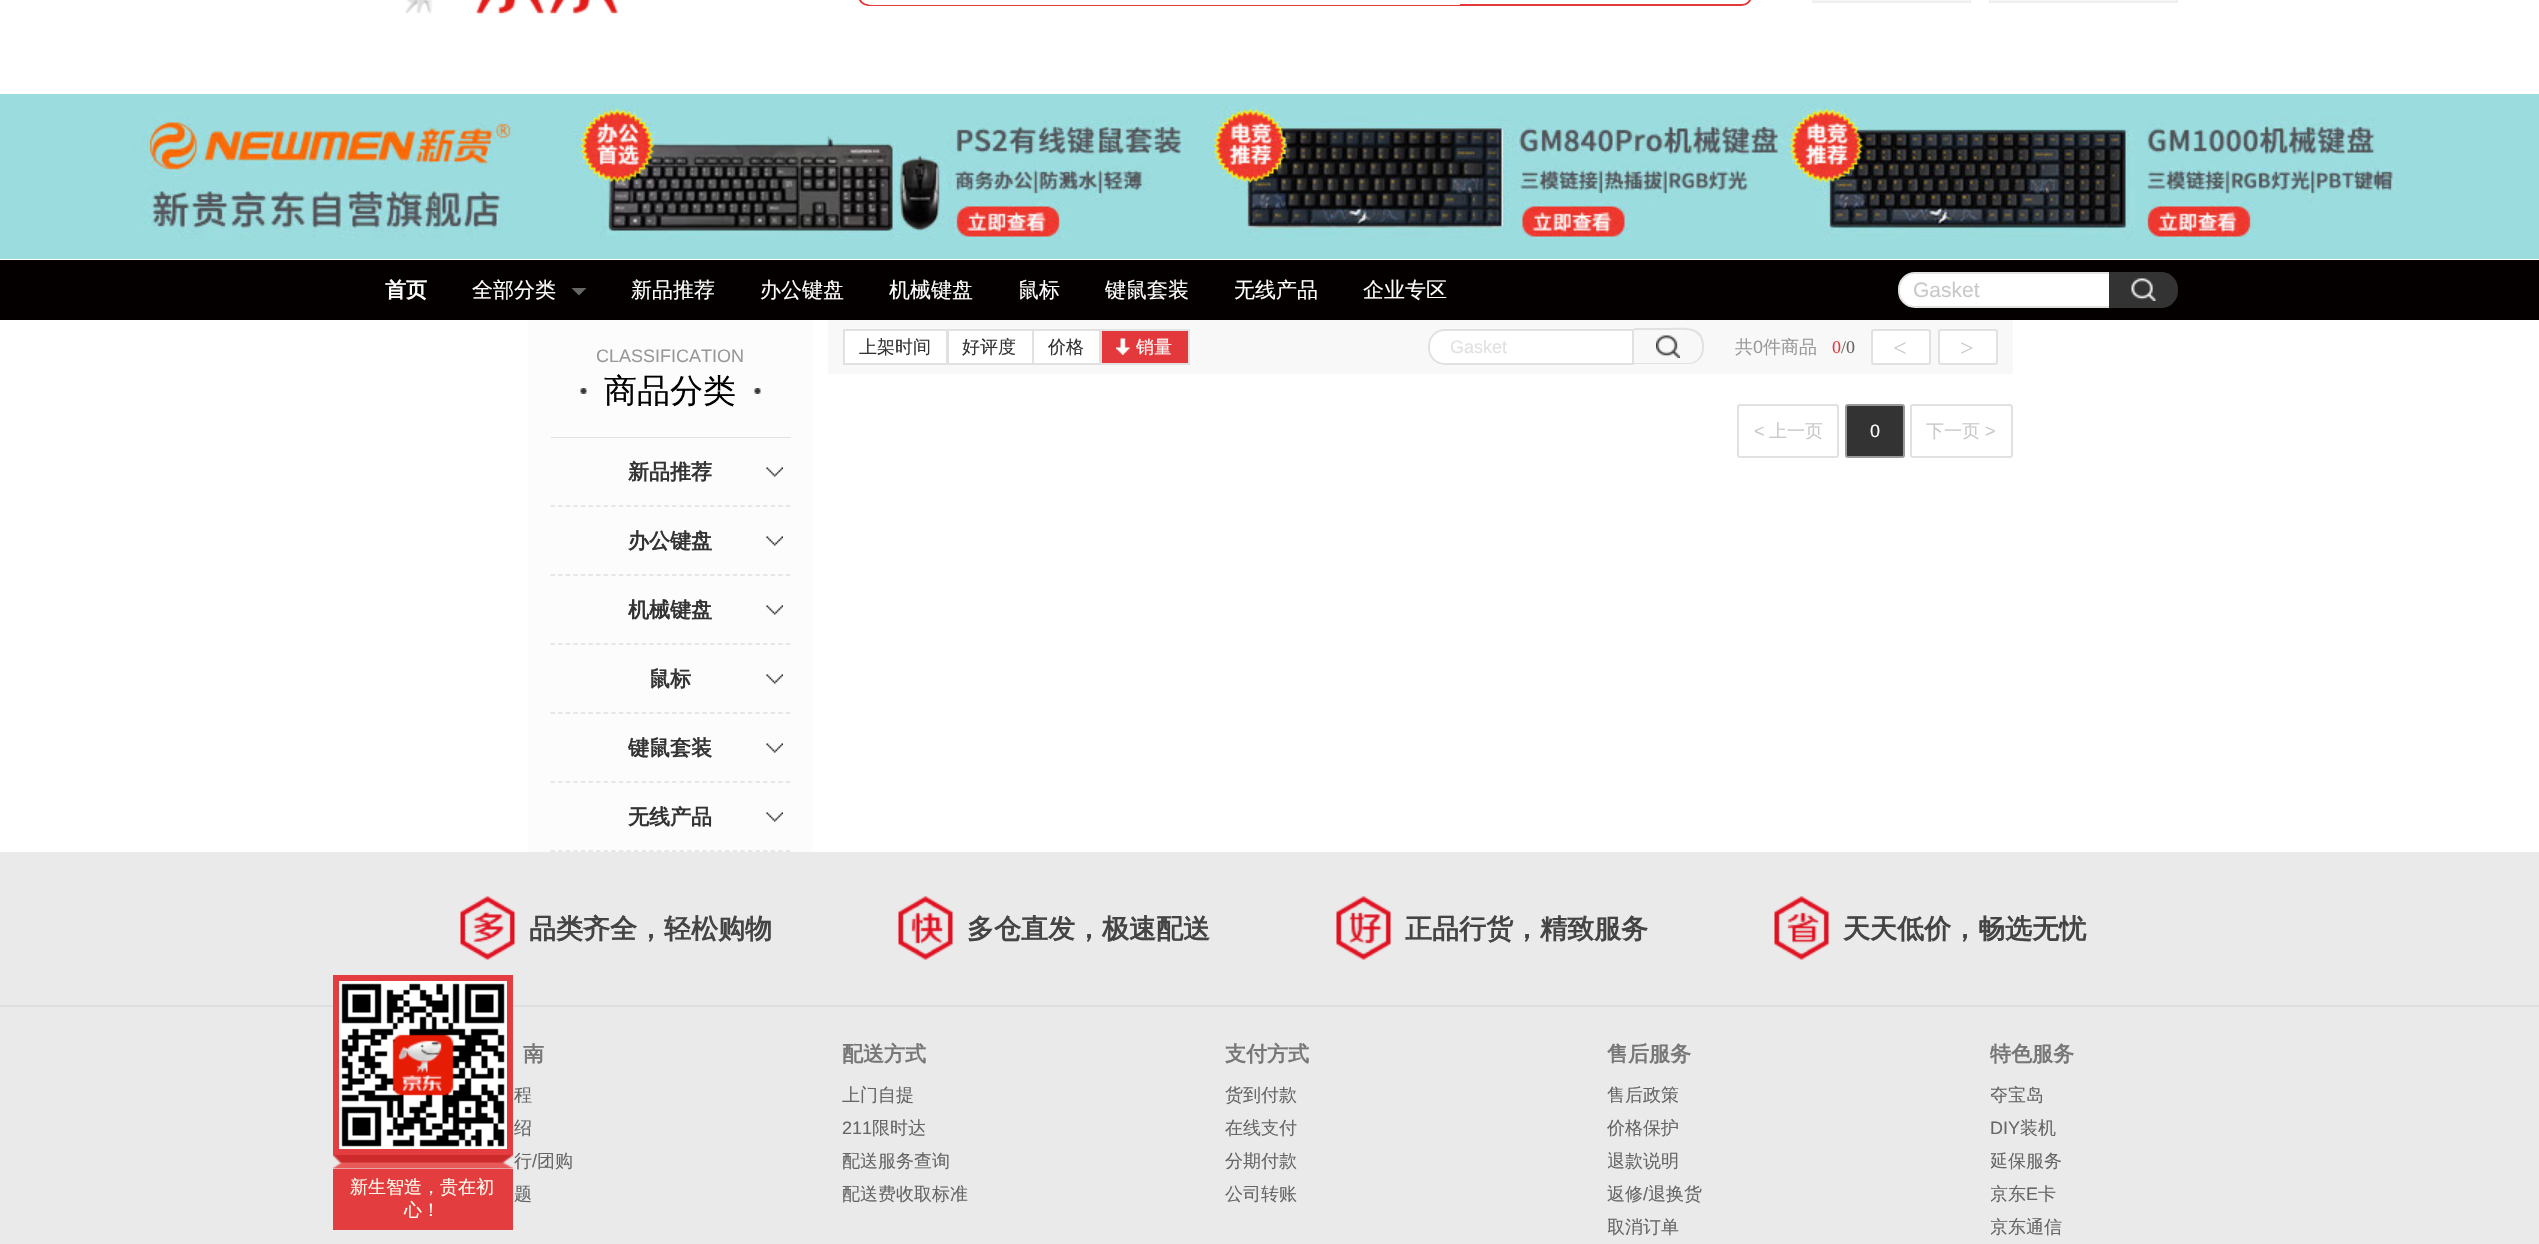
void draw(SkCanvas* c) {
SkPaint p;
p.setAntiAlias(true);
auto F=[&](const char* family, int weight, float size, bool italic = false){SkFontStyle style(weight, SkFontStyle::kNormal_Width,italic ? SkFontStyle::kItalic_Slant : SkFontStyle::kUpright_Slant);SkFont result(fontMgr->matchFamilyStyle(family, style), size);result.setSubpixel(true);return result;};
auto T=[&](const char* s, float x, float y, const SkFont& font){c->drawString(s, x, y, font, p);};
auto R=[&](float x, float y, float w, float h){c->drawRect(SkRect::MakeXYWH(x, y, w, h), p);};
auto I=[&](const char* path, float x, float y, float w, float h){auto image = SkImages::DeferredFromEncodedData(SkData::MakeFromFileName(path));c->drawImageRect(image, SkRect::MakeXYWH(x, y, w, h), SkSamplingOptions());};
auto P=[&](const char* data, bool evenOdd = false){SkPath result = *SkParsePath::FromSVGString(data);if (evenOdd) result.setFillType(SkPathFillType::kEvenOdd);return result;};
c->clear(0xffffffff);
I("1.png",405,0,213,14);
p.setStroke(true);
p.setStrokeWidth(2);
p.setColor(0xffe4393c);
c->drawRoundRect(SkRect::MakeXYWH(859,-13,892,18),11,11,p);
p.setStroke(false);
p.setColor(0xffffffff);
c->drawPath(P("M872-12h588v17h-588c-6.5 0-12-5.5-12-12v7c0-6.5 5.5-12 12-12z"),p);
p.setColor(0xfff7f7f7);
c->drawRect(SkRect::MakeXYWH(1813,-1,157,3),p);
p.setStroke(true);
p.setColor(0xffefefef);
c->drawRect(SkRect::MakeXYWH(1813,-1,157,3),p);
p.setStroke(false);
p.setColor(0xfff7f7f7);
c->drawRect(SkRect::MakeXYWH(1990,-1,187,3),p);
p.setStroke(true);
p.setColor(0xffefefef);
c->drawRect(SkRect::MakeXYWH(1990,-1,187,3),p);
I("2.png",0,94,2539,165);
p.setStroke(false);
p.setColor(0xff050000);
R(0,260,2539,60);
auto f1 = F("WenQuanYi Zen Hei",700,21);
p.setColor(0xffffffff);
T("首页",385,297,f1);
auto f2 = F("WenQuanYi Zen Hei",500,21);
T("全部分类",472,297,f2);
p.setColor(0xff666666);
c->drawPath(P("M571.5 288h15l-7.5 7.5z"),p);
p.setColor(0xffffffff);
T("新品推荐",631,297,f2);
T("办公键盘",760,297,f2);
T("机械键盘",889,297,f2);
T("鼠标",1018,297,f2);
T("键鼠套装",1105,297,f2);
T("无线产品",1234,297,f2);
T("企业专区",1363,297,f2);
c->drawPath(P("M1915 273h195v34h-195c-9 0-16-7-16-16v-2c0-9 7-16 16-16z"),p);
p.setStroke(true);
p.setColor(0xffe1e1e1);
c->drawPath(P("M1915 273h195v34h-195c-9 0-16-7-16-16v-2c0-9 7-16 16-16z"),p);
auto f3 = F("Liberation Sans",400,21);
p.setStroke(false);
p.setColor(0xffc9c9c9);
T("Gasket",1913,297,f3);
p.setColor(0xff333333);
c->drawPath(P("M2109 272h52c9.5 0 17 7.5 17 17v2c0 9.5-7.5 17-17 17h-52z"),p);
I("3.png",2131,278,25,23);
p.setColor(0xfffcfcfc);
R(528,320,285,532);
auto f4 = F("Liberation Sans",400,18);
p.setColor(0xff999999);
T("CLASSIFICATION",596,362,f4);
p.setColor(0xffe1e1e1);
R(551,437,240,1);
I("4.png",580,388,7,6);
auto f5 = F("WenQuanYi Zen Hei",500,33);
p.setColor(0xff000000);
T("商品分类",604,402,f5);
I("4.png",754,388,7,6);
p.setStroke(true);
p.setStrokeWidth(1.5);
p.setColor(0xffe1e1e1);
p.setPathEffect(SkDashPathEffect::Make({{4.5f,3.09f}}, 0));
c->drawPath(P("M550.5 506h240"),p);
p.setPathEffect(nullptr);
p.setStroke(false);
p.setColor(0xff333333);
T("新品推荐",628,479,f1);
I("5.png",766,467,17,10);
p.setStroke(true);
p.setColor(0xffe1e1e1);
p.setPathEffect(SkDashPathEffect::Make({{4.5f,3.09f}}, 0));
c->drawPath(P("M550.5 575h240"),p);
p.setPathEffect(nullptr);
p.setStroke(false);
p.setColor(0xff333333);
T("办公键盘",628,548,f1);
I("5.png",766,536,17,10);
p.setStroke(true);
p.setColor(0xffe1e1e1);
p.setPathEffect(SkDashPathEffect::Make({{4.5f,3.09f}}, 0));
c->drawPath(P("M550.5 644h240"),p);
p.setPathEffect(nullptr);
p.setStroke(false);
p.setColor(0xff333333);
T("机械键盘",628,617,f1);
I("5.png",766,605,17,10);
p.setStroke(true);
p.setColor(0xffe1e1e1);
p.setPathEffect(SkDashPathEffect::Make({{4.5f,3.09f}}, 0));
c->drawPath(P("M550.5 713h240"),p);
p.setPathEffect(nullptr);
p.setStroke(false);
p.setColor(0xff333333);
T("鼠标",649,686,f1);
I("5.png",766,674,17,10);
p.setStroke(true);
p.setColor(0xffe1e1e1);
p.setPathEffect(SkDashPathEffect::Make({{4.5f,3.09f}}, 0));
c->drawPath(P("M550.5 782h240"),p);
p.setPathEffect(nullptr);
p.setStroke(false);
p.setColor(0xff333333);
T("键鼠套装",628,755,f1);
I("5.png",766,743,17,10);
p.setStroke(true);
p.setColor(0xffe1e1e1);
p.setPathEffect(SkDashPathEffect::Make({{4.5f,3.09f}}, 0));
c->drawPath(P("M550.5 851h240"),p);
p.setPathEffect(nullptr);
p.setStroke(false);
p.setColor(0xff333333);
T("无线产品",628,824,f1);
I("5.png",766,812,17,10);
p.setColor(0xfff8f8f8);
R(828,320,1185,54);
p.setColor(0xffffffff);
c->drawRect(SkRect::MakeXYWH(844,330,103,34),p);
p.setStroke(true);
p.setStrokeWidth(2);
p.setColor(0xffe1e1e1);
c->drawRect(SkRect::MakeXYWH(844,330,103,34),p);
auto f6 = F("WenQuanYi Zen Hei",500,18);
p.setStroke(false);
p.setColor(0xff333333);
T("上架时间",859,353,f6);
p.setColor(0xffffffff);
c->drawRect(SkRect::MakeXYWH(948,330,85,34),p);
p.setStroke(true);
p.setColor(0xffe1e1e1);
c->drawRect(SkRect::MakeXYWH(948,330,85,34),p);
p.setStroke(false);
p.setColor(0xff333333);
T("好评度",962,353,f6);
p.setColor(0xffffffff);
c->drawRect(SkRect::MakeXYWH(1033,330,67,34),p);
p.setStroke(true);
p.setColor(0xffe1e1e1);
c->drawRect(SkRect::MakeXYWH(1033,330,67,34),p);
p.setStroke(false);
p.setColor(0xff333333);
T("价格",1048,353,f6);
p.setColor(0xffe4393c);
c->drawRect(SkRect::MakeXYWH(1101,330,88,34),p);
p.setStroke(true);
p.setColor(0xffe1e1e1);
c->drawRect(SkRect::MakeXYWH(1101,330,88,34),p);
I("6.png",1116,338,14,17);
p.setStroke(false);
p.setColor(0xffffffff);
T("销量",1136,353,f6);
c->drawPath(P("M1445 330h188v34h-188c-9 0-16-7-16-16v-2c0-9 7-16 16-16z"),p);
p.setStroke(true);
p.setColor(0xffe1e1e1);
c->drawPath(P("M1445 330h188v34h-188c-9 0-16-7-16-16v-2c0-9 7-16 16-16z"),p);
p.setStroke(false);
p.setColor(0xffe2e2e2);
T("Gasket",1450,353,f4);
I("7.png",1656,335,24,23);
p.setColor(0xffe1e1e1);
c->drawPath(P("M1634 328h36c14 0 33-3 34 17c1 9-4 17-13 19h-57zm0 2h36c13 0 31-3 32 15c1 8-3 16-11 18h-57z",true),p);
p.setColor(0xff999999);
T("共",1735,353,f6);
T("0",1753,353,f4);
T("件商品",1763,353,f6);
auto f7 = F("Liberation Serif",400,18);
p.setColor(0xffe4393c);
T("0",1832,353,f7);
p.setColor(0xff666666);
T("/0",1841,353,f7);
p.setColor(0xffffffff);
c->drawRoundRect(SkRect::MakeXYWH(1872,330,58,34),2,2,p);
p.setStroke(true);
p.setColor(0xffe1e1e1);
c->drawRoundRect(SkRect::MakeXYWH(1872,330,58,34),2,2,p);
auto f8 = F("Liberation Serif",400,24);
p.setStroke(false);
p.setColor(0xffc9c9c9);
T("<",1893,356,f8);
p.setColor(0xffffffff);
c->drawRoundRect(SkRect::MakeXYWH(1939,330,58,34),2,2,p);
p.setStroke(true);
p.setColor(0xffe1e1e1);
c->drawRoundRect(SkRect::MakeXYWH(1939,330,58,34),2,2,p);
p.setStroke(false);
p.setColor(0xffc9c9c9);
T(">",1960,356,f8);
p.setStroke(true);
p.setColor(0xffe1e1e1);
c->drawRoundRect(SkRect::MakeXYWH(1738,405,100,52),2,2,p);
p.setStroke(false);
p.setColor(0xffc9c9c9);
T("<",1754,437,f4);
T("上一页",1769,437,f6);
p.setColor(0xff333333);
c->drawRoundRect(SkRect::MakeXYWH(1846,405,58,52),2,2,p);
p.setStroke(true);
p.setColor(0xff999999);
c->drawRoundRect(SkRect::MakeXYWH(1846,405,58,52),2,2,p);
p.setStroke(false);
p.setColor(0xffffffff);
T("0",1870,437,f4);
p.setStroke(true);
p.setColor(0xffe1e1e1);
c->drawRoundRect(SkRect::MakeXYWH(1911,405,101,52),2,2,p);
p.setStroke(false);
p.setColor(0xffc9c9c9);
T("下一页",1926,437,f6);
T(">",1985,437,f4);
p.setColor(0xffeaeaea);
R(0,852,2539,392);
p.setColor(0xffdedede);
R(0,1005,2539,2);
p.setColor(0xffe43d3f);
R(333,975,180,180);
I("8.png",339,981,168,168);
I("9.png",333,1155,180,14);
R(333,1169,180,61);
p.setColor(0xfffffbee);
T("新生智造，贵在初",350,1193,f6);
T("心！",404,1216,f6);
I("10.png",460,896,55,64);
auto f9 = F("WenQuanYi Zen Hei",700,27);
p.setColor(0xff444444);
T("品类齐全，轻松购物",529,938,f9);
I("11.png",898,896,55,64);
T("多仓直发，极速配送",967,938,f9);
I("12.png",1336,896,55,64);
T("正品行货，精致服务",1405,938,f9);
I("13.png",1774,896,55,64);
T("天天低价，畅选无忧",1843,938,f9);
p.setColor(0xff777777);
T("南",523,1061,f1);
p.setColor(0xff666666);
T("程",514,1101,f6);
T("绍",514,1134,f6);
T("行",514,1167,f6);
T("/",532,1167,f4);
T("团购",537,1167,f6);
T("题",514,1200,f6);
p.setColor(0xff777777);
T("配送方式",842,1061,f1);
p.setColor(0xff666666);
T("上门自提",842,1101,f6);
T("211",842,1134,f4);
T("限时达",872,1134,f6);
T("配送服务查询",842,1167,f6);
T("配送费收取标准",842,1200,f6);
p.setColor(0xff777777);
T("支付方式",1225,1061,f1);
p.setColor(0xff666666);
T("货到付款",1225,1101,f6);
T("在线支付",1225,1134,f6);
T("分期付款",1225,1167,f6);
T("公司转账",1225,1200,f6);
p.setColor(0xff777777);
T("售后服务",1607,1061,f1);
p.setColor(0xff666666);
T("售后政策",1607,1101,f6);
T("价格保护",1607,1134,f6);
c->save();
c->clipRect(SkRect::MakeXYWH(1608,1145,383,33));
T("退款说明",1607,1167,f6);
c->restore();
T("返修",1607,1200,f6);
T("/",1643,1200,f4);
T("退换货",1648,1200,f6);
c->save();
c->clipRect(SkRect::MakeXYWH(1608,1211,383,33));
T("取消订单",1607,1233,f6);
c->restore();
p.setColor(0xff777777);
T("特色服务",1990,1061,f1);
c->save();
c->clipRect(SkRect::MakeXYWH(1991,1079,382,33));
p.setColor(0xff666666);
T("夺宝岛",1990,1101,f6);
c->restore();
T("DIY",1990,1134,f4);
T("装机",2020,1134,f6);
c->save();
c->clipRect(SkRect::MakeXYWH(1991,1145,382,33));
T("延保服务",1990,1167,f6);
c->restore();
c->save();
c->clipRect(SkRect::MakeXYWH(1991,1178,382,33));
T("京东",1990,1200,f6);
c->restore();
T("E",2026,1200,f4);
T("卡",2038,1200,f6);
c->save();
c->clipRect(SkRect::MakeXYWH(1991,1211,382,33));
T("京东通信",1990,1233,f6);
c->restore();
}
